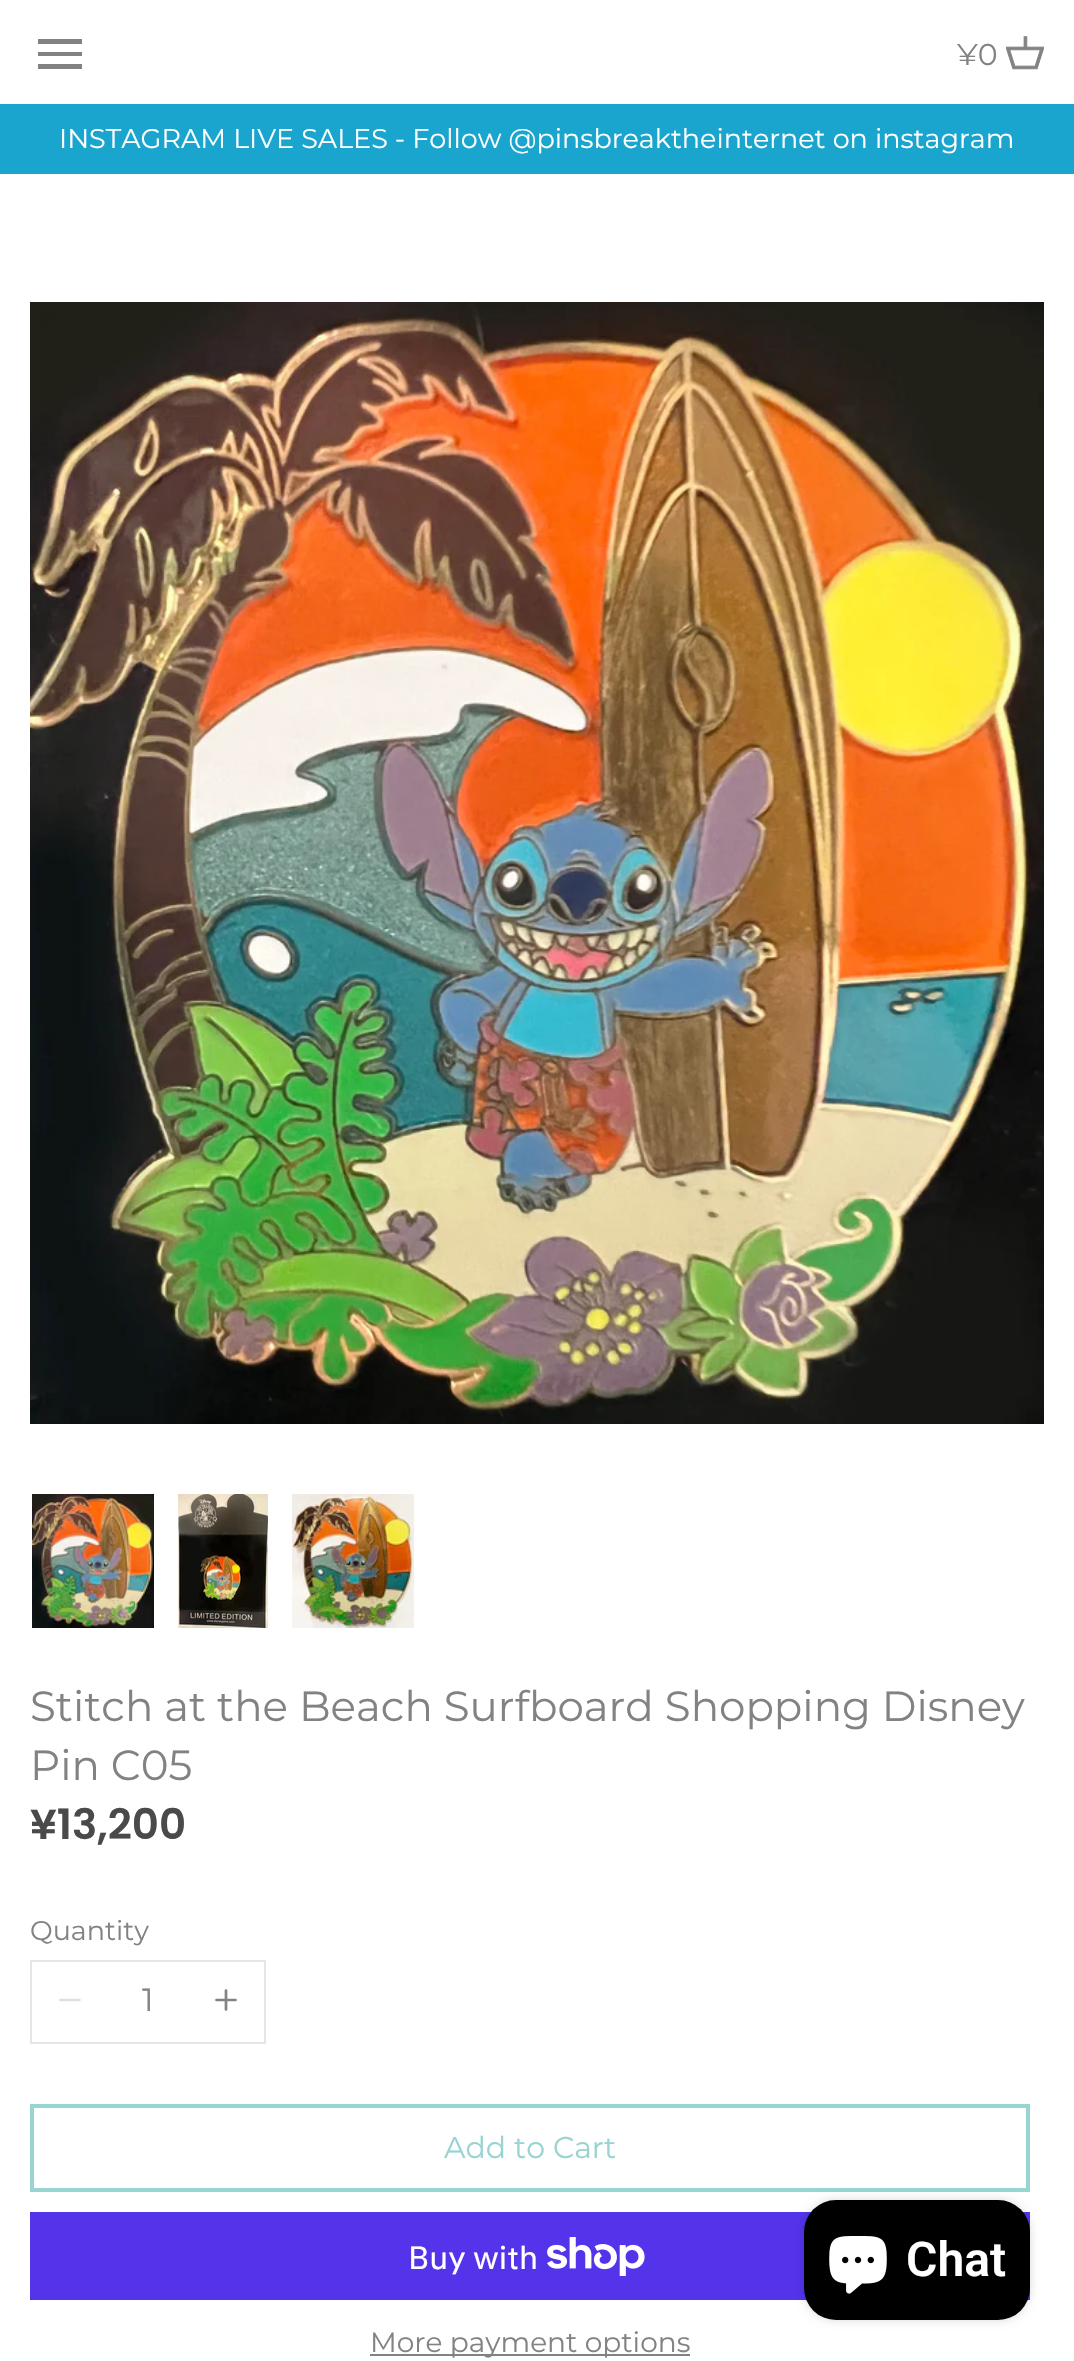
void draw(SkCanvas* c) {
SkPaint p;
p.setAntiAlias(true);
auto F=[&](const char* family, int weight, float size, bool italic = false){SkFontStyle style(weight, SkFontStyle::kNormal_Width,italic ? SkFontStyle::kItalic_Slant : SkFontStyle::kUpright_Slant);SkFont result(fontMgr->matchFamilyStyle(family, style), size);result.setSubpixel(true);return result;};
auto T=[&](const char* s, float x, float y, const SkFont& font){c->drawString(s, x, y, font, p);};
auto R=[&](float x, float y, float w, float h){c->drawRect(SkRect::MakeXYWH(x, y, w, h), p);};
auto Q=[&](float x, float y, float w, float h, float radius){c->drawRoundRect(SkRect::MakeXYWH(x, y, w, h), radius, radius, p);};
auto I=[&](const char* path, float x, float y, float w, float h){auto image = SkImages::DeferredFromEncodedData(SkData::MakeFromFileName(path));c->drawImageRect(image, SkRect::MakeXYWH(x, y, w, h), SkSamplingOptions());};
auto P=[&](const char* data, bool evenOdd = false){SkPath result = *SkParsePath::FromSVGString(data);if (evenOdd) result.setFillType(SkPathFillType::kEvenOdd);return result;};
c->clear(0xffffffff);
p.setColor(0xff828282);
c->drawPath(P("M38 69h44v-5h-44zm0-13h44v-4h-44zm0-17v5h44v-5z"),p);
auto f1 = F("Montserrat",400,30);
T("¥0",957,65,f1);
I("1.png",1006,36,38,34);
p.setColor(0xff19a5cd);
R(0,104,1074,70);
auto f2 = F("Montserrat",400,27);
p.setColor(0xffffffff);
T("INSTAGRAM LIVE SALES - Follow @pinsbreaktheinternet on instagram",59,148,f2);
I("2.png",30,302,1014,1122);
I("3.png",32,1494,122,134);
I("4.png",178,1494,90,134);
I("5.png",292,1494,122,134);
auto f3 = F("Montserrat",400,42);
p.setColor(0xff828282);
T("Stitch at the Beach Surfboard Shopping Disney",30,1721,f3);
T("Pin C05",30,1780,f3);
auto f4 = F("Poppins",600,42);
p.setColor(0xff4a4a4a);
T("¥13,200",30,1839,f4);
p.setColor(0xff828282);
T("Quantity",30,1940,f2);
p.setStroke(true);
p.setStrokeWidth(2);
p.setColor(0xffe5e5e5);
c->drawRect(SkRect::MakeXYWH(31,1961,234,82),p);
p.setStrokeWidth(2.7);
p.setStrokeCap(SkPaint::kRound_Cap);
p.setStrokeJoin(SkPaint::kRound_Join);
p.setColor(0xffe0e0e0);
c->drawPath(P("M60.5 2000h19"),p);
auto f5 = F("Montserrat",400,32);
p.setStroke(false);
p.setColor(0xff828282);
T("1",142,2011,f5);
p.setStroke(true);
c->drawPath(P("M226 1990.5v19m-9.5-9.5h19"),p);
p.setStrokeWidth(4);
p.setStrokeCap(SkPaint::kButt_Cap);
p.setStrokeJoin(SkPaint::kMiter_Join);
p.setColor(0xff98d4d2);
c->drawRect(SkRect::MakeXYWH(32,2106,996,84),p);
p.setStroke(false);
T("Add to Cart",444,2158,f1);
p.setColor(0xff5433eb);
R(30,2212,1000,88);
auto f6 = F("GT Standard",400,32);
p.setColor(0xffffffff);
T("Buy with",408,2269,f6);
I("6.png",547,2237,98,39);
p.setColor(0xff828282);
R(370,2354,320,2);
auto f7 = F("Montserrat",400,28);
T("More payment options",370,2352,f7);
p.setColor(0x26000000);
p.setMaskFilter(SkMaskFilter::MakeBlur(kNormal_SkBlurStyle, 5));
c->drawRoundRect(SkRect::MakeXYWH(804,2200,226,120),32,32,p);
p.setMaskFilter(nullptr);
p.setColor(0xff000000);
Q(804,2200,226,120,32);
I("7.png",829,2236,58,58);
auto f8 = F("Roboto",600,48);
p.setColor(0xffffffff);
T("Chat",906,2276,f8);
}
